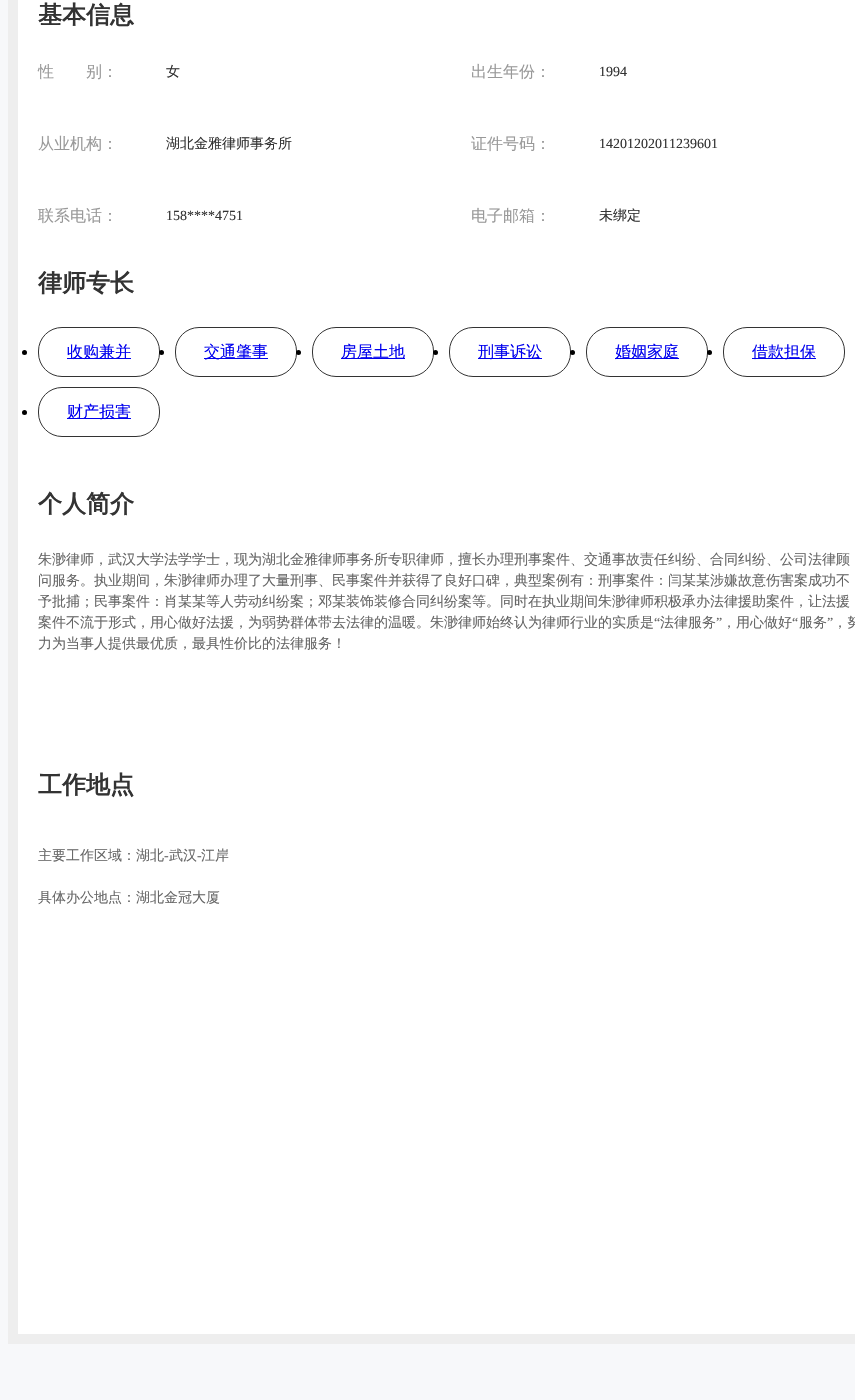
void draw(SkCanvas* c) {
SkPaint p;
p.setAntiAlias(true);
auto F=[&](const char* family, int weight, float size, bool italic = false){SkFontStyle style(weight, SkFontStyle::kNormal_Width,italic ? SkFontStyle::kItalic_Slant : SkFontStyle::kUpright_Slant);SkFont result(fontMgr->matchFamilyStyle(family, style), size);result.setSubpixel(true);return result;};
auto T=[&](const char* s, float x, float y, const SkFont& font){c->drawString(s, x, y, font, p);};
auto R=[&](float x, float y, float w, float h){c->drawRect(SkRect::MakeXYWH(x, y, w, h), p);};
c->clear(0xfff7f8fa);
p.setColor(0xffeeeeee);
R(8,0,847,1344);
p.setColor(0xffffffff);
R(18,0,837,1334);
auto f1 = F("WenQuanYi Zen Hei",700,24);
p.setColor(0xff333333);
T("基本信息",38,23,f1);
auto f2 = F("WenQuanYi Zen Hei",500,16);
p.setColor(0xff999999);
T("性",38,77,f2);
T("别：",86,77,f2);
auto f3 = F("WenQuanYi Zen Hei",500,14);
p.setColor(0xff333333);
T("女",166,76,f3);
p.setColor(0xff999999);
T("出生年份：",471,77,f2);
auto f4 = F("Liberation Serif",400,14);
p.setColor(0xff333333);
T("1994",599,76,f4);
p.setColor(0xff999999);
T("从业机构：",38,149,f2);
p.setColor(0xff333333);
T("湖北金雅律师事务所",166,148,f3);
p.setColor(0xff999999);
T("证件号码：",471,149,f2);
p.setColor(0xff333333);
T("14201202011239601",599,148,f4);
p.setColor(0xff999999);
T("联系电话：",38,221,f2);
p.setColor(0xff333333);
T("158****4751",166,220,f4);
p.setColor(0xff999999);
T("电子邮箱：",471,221,f2);
p.setColor(0xff333333);
T("未绑定",599,220,f3);
T("律师专长",38,291,f1);
p.setColor(0xff000000);
c->drawCircle(24.5,352.5,2.5,p);
p.setStroke(true);
p.setStrokeWidth(1);
p.setColor(0xff333333);
c->drawRoundRect(SkRect::MakeXYWH(38.5,327.5,121,49),23.5,23.5,p);
p.setStroke(false);
p.setColor(0xff0000ee);
R(67,358,64,1);
T("收购兼并",67,357,f2);
p.setColor(0xff000000);
c->drawCircle(161.5,352.5,2.5,p);
p.setStroke(true);
p.setColor(0xff333333);
c->drawRoundRect(SkRect::MakeXYWH(175.5,327.5,121,49),23.5,23.5,p);
p.setStroke(false);
p.setColor(0xff0000ee);
R(204,358,64,1);
T("交通肇事",204,357,f2);
p.setColor(0xff000000);
c->drawCircle(298.5,352.5,2.5,p);
p.setStroke(true);
p.setColor(0xff333333);
c->drawRoundRect(SkRect::MakeXYWH(312.5,327.5,121,49),23.5,23.5,p);
p.setStroke(false);
p.setColor(0xff0000ee);
R(341,358,64,1);
T("房屋土地",341,357,f2);
p.setColor(0xff000000);
c->drawCircle(435.5,352.5,2.5,p);
p.setStroke(true);
p.setColor(0xff333333);
c->drawRoundRect(SkRect::MakeXYWH(449.5,327.5,121,49),23.5,23.5,p);
p.setStroke(false);
p.setColor(0xff0000ee);
R(478,358,64,1);
T("刑事诉讼",478,357,f2);
p.setColor(0xff000000);
c->drawCircle(572.5,352.5,2.5,p);
p.setStroke(true);
p.setColor(0xff333333);
c->drawRoundRect(SkRect::MakeXYWH(586.5,327.5,121,49),23.5,23.5,p);
p.setStroke(false);
p.setColor(0xff0000ee);
R(615,358,64,1);
T("婚姻家庭",615,357,f2);
p.setColor(0xff000000);
c->drawCircle(709.5,352.5,2.5,p);
p.setStroke(true);
p.setColor(0xff333333);
c->drawRoundRect(SkRect::MakeXYWH(723.5,327.5,121,49),23.5,23.5,p);
p.setStroke(false);
p.setColor(0xff0000ee);
R(752,358,64,1);
T("借款担保",752,357,f2);
p.setColor(0xff000000);
c->drawCircle(24.5,412.5,2.5,p);
p.setStroke(true);
p.setColor(0xff333333);
c->drawRoundRect(SkRect::MakeXYWH(38.5,387.5,121,49),23.5,23.5,p);
p.setStroke(false);
p.setColor(0xff0000ee);
R(67,418,64,1);
T("财产损害",67,417,f2);
p.setColor(0xff333333);
T("个人简介",38,512,f1);
p.setColor(0xff666666);
T("朱渺律师，武汉大学法学学士，现为湖北金雅律师事务所专职律师，擅长办理刑事案件、交通事故责任纠纷、合同纠纷、公司法律顾",38,564,f3);
T("问服务。执业期间，朱渺律师办理了大量刑事、民事案件并获得了良好口碑，典型案例有：刑事案件：闫某某涉嫌故意伤害案成功不",38,585,f3);
T("予批捕；民事案件：肖某某等人劳动纠纷案；邓某装饰装修合同纠纷案等。同时在执业期间朱渺律师积极承办法律援助案件，让法援",38,606,f3);
T("案件不流于形式，用心做好法援，为弱势群体带去法律的温暖。朱渺律师始终认为律师行业的实质是",38,627,f3);
T("“",654,627,f4);
T("法律服务",660,627,f3);
T("”",716,627,f4);
T("，用心做好",722,627,f3);
T("“",792,627,f4);
T("服务",799,627,f3);
T("”",827,627,f4);
T("，努",833,627,f3);
T("力为当事人提供最优质，最具性价比的法律服务！",38,648,f3);
p.setColor(0xff333333);
T("工作地点",38,793,f1);
p.setColor(0xff666666);
T("主要工作区域：湖北",38,860,f3);
T("-",164,860,f4);
T("武汉",169,860,f3);
T("-",197,860,f4);
T("江岸",201,860,f3);
T("具体办公地点：湖北金冠大厦",38,902,f3);
}
